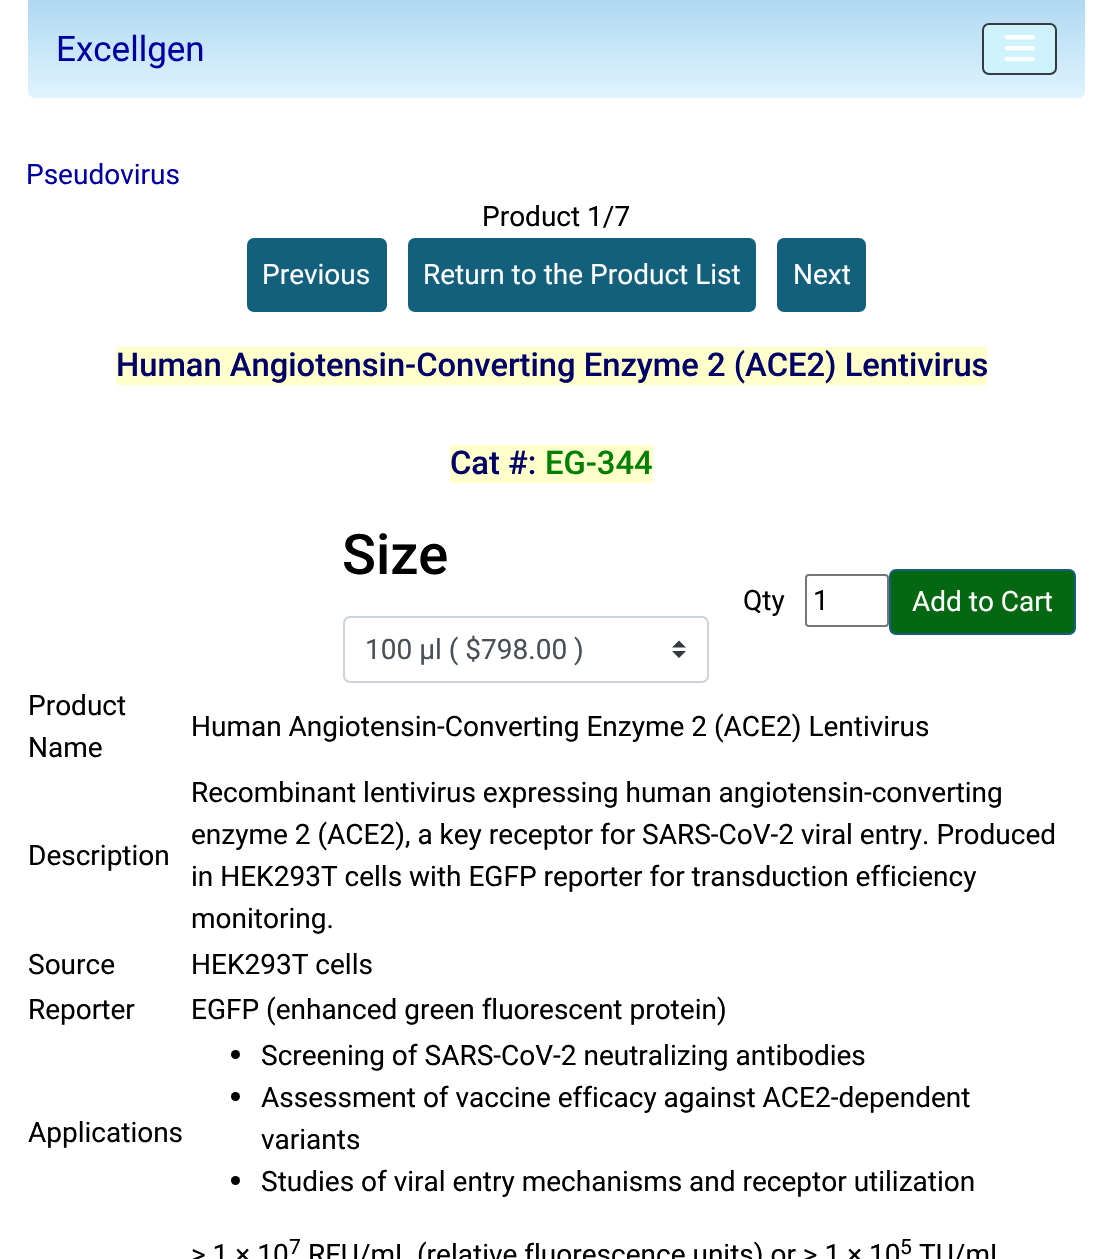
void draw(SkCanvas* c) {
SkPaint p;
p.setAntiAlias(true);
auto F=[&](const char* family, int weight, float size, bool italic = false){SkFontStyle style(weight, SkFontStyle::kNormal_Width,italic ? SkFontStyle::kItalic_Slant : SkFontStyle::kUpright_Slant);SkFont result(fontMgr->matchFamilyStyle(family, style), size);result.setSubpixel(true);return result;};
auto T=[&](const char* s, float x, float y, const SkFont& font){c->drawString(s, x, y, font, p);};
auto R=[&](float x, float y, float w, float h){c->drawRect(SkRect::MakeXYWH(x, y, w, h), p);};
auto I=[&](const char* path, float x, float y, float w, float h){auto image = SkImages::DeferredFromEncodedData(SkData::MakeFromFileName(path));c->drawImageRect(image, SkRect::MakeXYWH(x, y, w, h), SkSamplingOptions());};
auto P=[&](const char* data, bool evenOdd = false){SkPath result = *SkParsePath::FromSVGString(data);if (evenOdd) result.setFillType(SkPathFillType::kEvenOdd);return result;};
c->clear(0xffffffff);
{
const SkColor colors[] = {0xffb0d8f1,0xffe0f4ff};
const float stops[] = {0,1};
const SkPoint ends[] = {{557,0}, {557,98}};
p.setShader(SkGradientShader::MakeLinear(ends, colors, stops, 2, SkTileMode::kClamp));
p.setAlpha(255);
}
c->drawPath(P("M28 0h1057v91c0 4-3 7-7 7h-1043c-4 0-7-3-7-7z"),p);
auto f1 = F("Roboto",400,35);
p.setShader(nullptr);
p.setColor(0xff0000a0);
T("Excellgen",56,61,f1);
p.setColor(0xffcff3fd);
c->drawRoundRect(SkRect::MakeXYWH(983,24,73,50),6,6,p);
p.setStroke(true);
p.setStrokeWidth(2);
p.setColor(0xff343a40);
c->drawRoundRect(SkRect::MakeXYWH(983,24,73,50),6,6,p);
I("1.png",1004,35,31,27);
auto f2 = F("Roboto",400,28);
p.setStroke(false);
p.setColor(0xff0000a0);
T("Pseudovirus",26,184,f2);
p.setColor(0xff000000);
T("Product 1/7",482,226,f2);
p.setColor(0xff13607c);
c->drawRoundRect(SkRect::MakeXYWH(248,239,138,72),6,6,p);
p.setStroke(true);
c->drawRoundRect(SkRect::MakeXYWH(248,239,138,72),6,6,p);
p.setStroke(false);
p.setColor(0xffffffff);
T("Previous",262,284,f2);
p.setColor(0xff13607c);
c->drawRoundRect(SkRect::MakeXYWH(409,239,346,72),6,6,p);
p.setStroke(true);
c->drawRoundRect(SkRect::MakeXYWH(409,239,346,72),6,6,p);
p.setStroke(false);
p.setColor(0xffffffff);
T("Return to the Product List",423,284,f2);
p.setColor(0xff13607c);
c->drawRoundRect(SkRect::MakeXYWH(778,239,87,72),6,6,p);
p.setStroke(true);
c->drawRoundRect(SkRect::MakeXYWH(778,239,87,72),6,6,p);
p.setStroke(false);
p.setColor(0xffffffff);
T("Next",793,284,f2);
p.setColor(0xffffffcc);
R(116,347,871,38);
auto f3 = F("Roboto",500,32.7);
p.setColor(0xff000066);
T("Human Angiotensin-Converting Enzyme 2 (ACE2) Lentivirus",116,376,f3);
p.setColor(0xffffffcc);
R(450,445,203,38);
p.setColor(0xff000066);
T("Cat #:",450,474,f3);
p.setColor(0xff008000);
T("EG-344",545,474,f3);
auto f4 = F("Roboto",500,56);
p.setColor(0xff000000);
T("Size",342,574,f4);
p.setColor(0xff343a40);
c->drawPath(P("M679 640.5l-7 7h14zm0 17.5l-7-7h14z"),p);
p.setStroke(true);
p.setColor(0xffced4da);
c->drawRoundRect(SkRect::MakeXYWH(344,617,364,65),6,6,p);
p.setStroke(false);
p.setColor(0xff495057);
T("100 µl ( $798.00 )",365,659,f2);
p.setColor(0xff000000);
T("Qty",743,610,f2);
p.setStroke(true);
p.setColor(0xff767676);
c->drawRoundRect(SkRect::MakeXYWH(806,575,82,51),3,3,p);
p.setStroke(false);
p.setColor(0xff000000);
T("1",813,610,f2);
p.setColor(0xff036811);
c->drawRoundRect(SkRect::MakeXYWH(890,570,185,64),6,6,p);
p.setStroke(true);
p.setColor(0xff13607c);
c->drawRoundRect(SkRect::MakeXYWH(890,570,185,64),6,6,p);
p.setStroke(false);
p.setColor(0xffffffff);
T("Add to Cart",912,611,f2);
p.setColor(0xff000000);
T("Product",28,715,f2);
T("Name",28,757,f2);
T("Human Angiotensin-Converting Enzyme 2 (ACE2) Lentivirus",191,736,f2);
T("Description",28,865,f2);
T("Recombinant lentivirus expressing human angiotensin-converting",191,802,f2);
T("enzyme 2 (ACE2), a key receptor for SARS-CoV-2 viral entry. Produced",191,844,f2);
T("in HEK293T cells with EGFP reporter for transduction efficiency",191,886,f2);
T("monitoring.",191,928,f2);
T("Source",28,974,f2);
T("HEK293T cells",191,974,f2);
T("Reporter",28,1019,f2);
T("EGFP (enhanced green fluorescent protein)",191,1019,f2);
T("Applications",28,1142,f2);
c->drawCircle(235.5,1054.5,4.5,p);
T("Screening of SARS-CoV-2 neutralizing antibodies",261,1065,f2);
c->drawCircle(235.5,1096.5,4.5,p);
T("Assessment of vaccine efficacy against ACE2-dependent",261,1107,f2);
T("variants",261,1149,f2);
c->drawCircle(235.5,1180.5,4.5,p);
T("Studies of viral entry mechanisms and receptor utilization",261,1191,f2);
T("> 1 × 10",191,1264,f2);
auto f5 = F("Roboto",400,21);
T("7",289,1254,f5);
T("RFU/mL (relative fluorescence units) or > 1 × 10",308,1264,f2);
T("5",900,1254,f5);
T("TU/mL",919,1264,f2);
}
